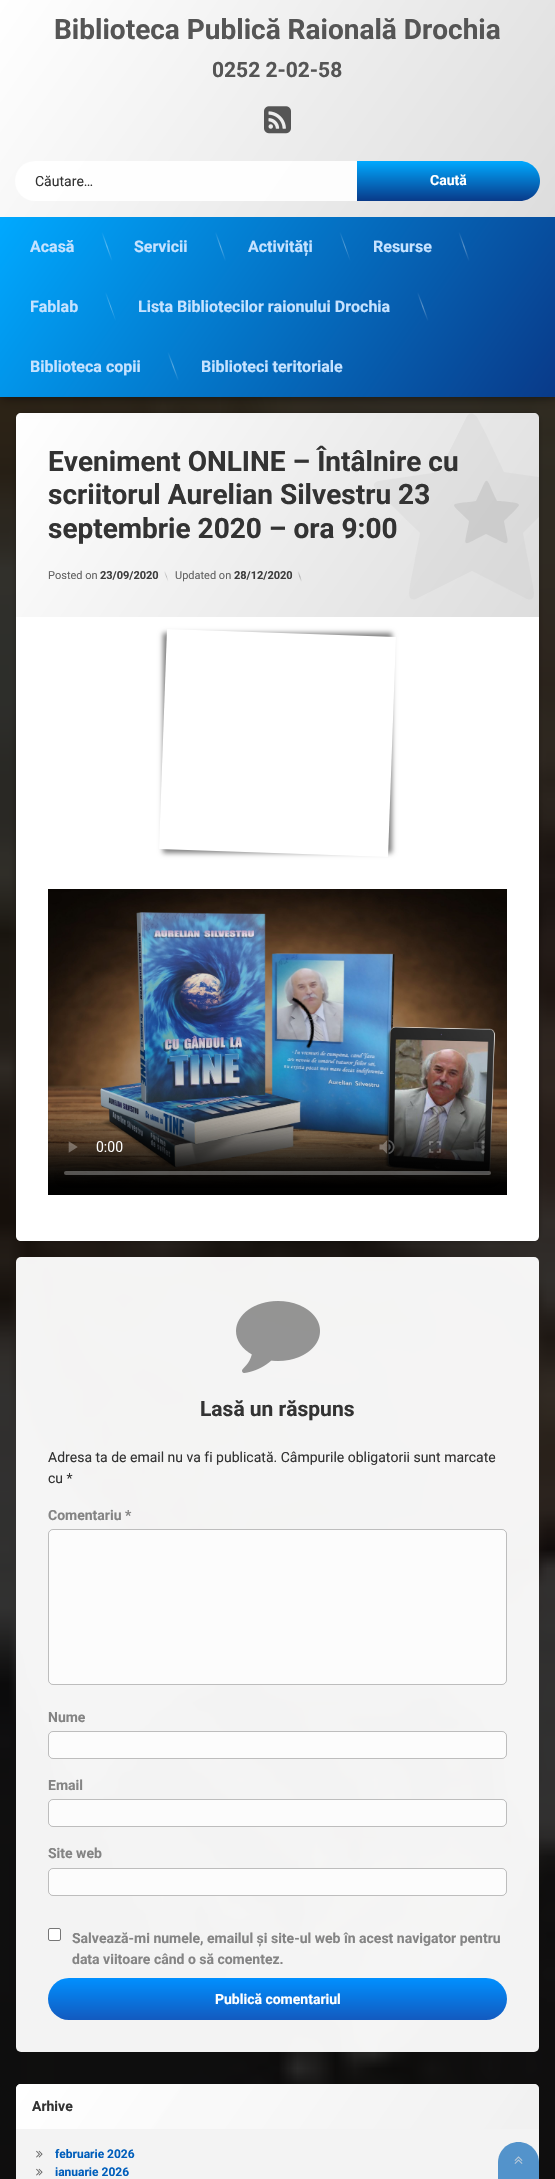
void draw(SkCanvas* c) {
SkPaint p;
p.setAntiAlias(true);
auto F=[&](const char* family, int weight, float size, bool italic = false){SkFontStyle style(weight, SkFontStyle::kNormal_Width,italic ? SkFontStyle::kItalic_Slant : SkFontStyle::kUpright_Slant);SkFont result(fontMgr->matchFamilyStyle(family, style), size);result.setSubpixel(true);return result;};
auto T=[&](const char* s, float x, float y, const SkFont& font){c->drawString(s, x, y, font, p);};
auto R=[&](float x, float y, float w, float h){c->drawRect(SkRect::MakeXYWH(x, y, w, h), p);};
auto Q=[&](float x, float y, float w, float h, float radius){c->drawRoundRect(SkRect::MakeXYWH(x, y, w, h), radius, radius, p);};
auto I=[&](const char* path, float x, float y, float w, float h){auto image = SkImages::DeferredFromEncodedData(SkData::MakeFromFileName(path));c->drawImageRect(image, SkRect::MakeXYWH(x, y, w, h), SkSamplingOptions());};
auto P=[&](const char* data, bool evenOdd = false){SkPath result = *SkParsePath::FromSVGString(data);if (evenOdd) result.setFillType(SkPathFillType::kEvenOdd);return result;};
c->clear(0xffffffff);
I("1.png",0,397,555,1782);
p.setColor(0x4d000000);
p.setMaskFilter(SkMaskFilter::MakeBlur(kNormal_SkBlurStyle, 3.5));
c->drawRect(SkRect::MakeXYWH(2,2,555,397),p);
p.setMaskFilter(nullptr);
p.setColor(0x40000000);
p.setMaskFilter(SkMaskFilter::MakeBlur(kNormal_SkBlurStyle, 2.5));
c->drawRoundRect(SkRect::MakeXYWH(16,413,523,828),10,10,p);
p.setMaskFilter(nullptr);
p.setColor(0xffffffff);
c->drawPath(P("M26 413h503c5.5 0 10 4.5 10 10v813c0 3-2 5-5 5h-513c-3 0-5-2-5-5v-813c0-5.5 4.5-10 10-10z"),p);
{
const SkColor colors[] = {0xffffffff,0xffdddddd};
const float stops[] = {0,1};
const SkPoint ends[] = {{54,359}, {501,671}};
p.setShader(SkGradientShader::MakeLinear(ends, colors, stops, 2, SkTileMode::kClamp));
p.setAlpha(255);
}
c->drawPath(P("M21 413h513c3 0 5 2 5 5v199h-523v-199c0-3 2-5 5-5z"),p);
p.setShader(nullptr);
p.setColor(0x1faaaaaa);
c->drawPath(P("M539 477v40l-16 16l10 53c1 6 3 16-6 13l-55-28l-56 28c-9 3-7-8-6-14l10-52l-37-36c-4-4-15-13-5-16l61-9l28-56l2-2c3-2 6 1 8 3l9 17l18 38z"),p);
p.setColor(0x33000000);
p.setMaskFilter(SkMaskFilter::MakeBlur(kNormal_SkBlurStyle, 7.5));
c->drawRect(SkRect::MakeXYWH(0,0,555,397),p);
p.setMaskFilter(nullptr);
{
const SkColor colors[] = {0xffffffff,0xffdddddd};
const float stops[] = {0,1};
const SkPoint ends[] = {{40,-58}, {515,275}};
p.setShader(SkGradientShader::MakeLinear(ends, colors, stops, 2, SkTileMode::kClamp));
p.setAlpha(255);
}
R(0,0,555,217);
auto f1 = F("Roboto",700,28);
p.setShader(nullptr);
p.setColor(0xff555555);
T("Biblioteca Publică Raională Drochia",54,39,f1);
auto f2 = F("Roboto",700,21);
T("0252 2-02-58",212,77,f2);
I("2.png",264,106,27,28);
p.setColor(0xe6ffffff);
Q(15,161,523,40,20);
auto f3 = F("Roboto",400,14);
p.setColor(0xff333333);
T("Căutare…",35,186,f3);
{
const SkColor colors[] = {0xff00a9ff,0xff093a89};
const float stops[] = {0,1};
const SkPoint ends[] = {{449,161}, {449,201}};
p.setShader(SkGradientShader::MakeLinear(ends, colors, stops, 2, SkTileMode::kClamp));
p.setAlpha(255);
}
c->drawPath(P("M357 161h163c11 0 20 9 20 20c0 11-9 20-20 20h-163z"),p);
auto f4 = F("Roboto",700,14);
p.setShader(nullptr);
p.setColor(0xffffffff);
T("Caută",430,185,f4);
{
const SkColor colors[] = {0xff00a9ff,0xff093a89};
const float stops[] = {0,1};
const SkPoint ends[] = {{49,147}, {506,467}};
p.setShader(SkGradientShader::MakeLinear(ends, colors, stops, 2, SkTileMode::kClamp));
p.setAlpha(255);
}
R(0,217,555,180);
auto f5 = F("Roboto",700,16);
p.setShader(nullptr);
p.setColor(0xffc5e2ff);
T("Acasă",30,252,f5);
{
const SkColor colors[] = {0x00ffffff,0x5cffffff,0x00ffffff};
const float stops[] = {0,.5,1};
const SkPoint ends[] = {{102,232}, {112,261}};
p.setShader(SkGradientShader::MakeLinear(ends, colors, stops, 3, SkTileMode::kClamp));
p.setAlpha(255);
}
c->drawPath(P("M101.5 232.5l1-.5l10 28.5l-1 .5z"),p);
p.setShader(nullptr);
p.setColor(0xffc5e2ff);
T("Servicii",134,252,f5);
{
const SkColor colors[] = {0x00ffffff,0x5cffffff,0x00ffffff};
const float stops[] = {0,.5,1};
const SkPoint ends[] = {{215,232}, {226,261}};
p.setShader(SkGradientShader::MakeLinear(ends, colors, stops, 3, SkTileMode::kClamp));
p.setAlpha(255);
}
c->drawPath(P("M215 232.5l1-.5l10 28.5l-1 .5z"),p);
p.setShader(nullptr);
p.setColor(0xffc5e2ff);
T("Activități",248,252,f5);
{
const SkColor colors[] = {0x00ffffff,0x5cffffff,0x00ffffff};
const float stops[] = {0,.5,1};
const SkPoint ends[] = {{340,232}, {350,261}};
p.setShader(SkGradientShader::MakeLinear(ends, colors, stops, 3, SkTileMode::kClamp));
p.setAlpha(255);
}
c->drawPath(P("M339.5 232.5l1-.5l10 28.5l-.5 .5z"),p);
p.setShader(nullptr);
p.setColor(0xffc5e2ff);
T("Resurse",373,252,f5);
{
const SkColor colors[] = {0x00ffffff,0x5cffffff,0x00ffffff};
const float stops[] = {0,.5,1};
const SkPoint ends[] = {{459,232}, {469,261}};
p.setShader(SkGradientShader::MakeLinear(ends, colors, stops, 3, SkTileMode::kClamp));
p.setAlpha(255);
}
c->drawPath(P("M458.5 232.5l1-.5l10 28.5l-1 .5z"),p);
p.setShader(nullptr);
p.setColor(0xffc5e2ff);
T("Fablab",30,312,f5);
{
const SkColor colors[] = {0x00ffffff,0x5cffffff,0x00ffffff};
const float stops[] = {0,.5,1};
const SkPoint ends[] = {{106,292}, {116,321}};
p.setShader(SkGradientShader::MakeLinear(ends, colors, stops, 3, SkTileMode::kClamp));
p.setAlpha(255);
}
c->drawPath(P("M105 292.5l1-.5l10 28.5l-.5 .5z"),p);
p.setShader(nullptr);
p.setColor(0xffc5e2ff);
T("Lista Bibliotecilor raionului Drochia",138,312,f5);
{
const SkColor colors[] = {0x00ffffff,0x5cffffff,0x00ffffff};
const float stops[] = {0,.5,1};
const SkPoint ends[] = {{418,292}, {428,321}};
p.setShader(SkGradientShader::MakeLinear(ends, colors, stops, 3, SkTileMode::kClamp));
p.setAlpha(255);
}
c->drawPath(P("M417 292.5l1-.5l10.5 28.5l-1 .5z"),p);
p.setShader(nullptr);
p.setColor(0xffc5e2ff);
T("Biblioteca copii",30,372,f5);
{
const SkColor colors[] = {0x00ffffff,0x5cffffff,0x00ffffff};
const float stops[] = {0,.5,1};
const SkPoint ends[] = {{168,352}, {178,381}};
p.setShader(SkGradientShader::MakeLinear(ends, colors, stops, 3, SkTileMode::kClamp));
p.setAlpha(255);
}
c->drawPath(P("M167.5 352.5l1-.5l10.5 28.5l-1 .5z"),p);
p.setShader(nullptr);
p.setColor(0xffc5e2ff);
T("Biblioteci teritoriale",201,372,f5);
p.setColor(0xff333333);
T("Eveniment ONLINE – Întâlnire cu",48,471,f1);
T("scriitorul Aurelian Silvestru 23",48,504,f1);
T("septembrie 2020 – ora 9:00",48,538,f1);
p.setColor(0x4daaaaaa);
c->drawPath(P("M519 505c0 2-13 14-15 16c5 28 9 26-18 13c-26 13-22 15-17-13c-20-20-22-16 7-20c13-27 8-27 21 0c4 0 22 1 22 4z"),p);
auto f6 = F("Roboto",400,11);
p.setColor(0xff646464);
T("Posted on",48,579,f6);
auto f7 = F("Roboto",700,11);
p.setColor(0xff3d3d3d);
T("23/09/2020",100,579,f7);
{
const SkColor colors[] = {0xfff2f2f2,0xffb0b0b0,0xfff2f2f2};
const float stops[] = {0,.5,1};
const SkPoint ends[] = {{164,571}, {168,582}};
p.setShader(SkGradientShader::MakeLinear(ends, colors, stops, 3, SkTileMode::kClamp));
p.setAlpha(255);
}
c->drawPath(P("M164 571.5l1-.5l3.5 10.5h-.5z"),p);
p.setShader(nullptr);
p.setColor(0xff646464);
T("Updated on",175,579,f6);
p.setColor(0xff3d3d3d);
T("28/12/2020",234,579,f7);
{
const SkColor colors[] = {0xffebebeb,0xffababab,0xffebebeb};
const float stops[] = {0,.5,1};
const SkPoint ends[] = {{298,571}, {302,582}};
p.setShader(SkGradientShader::MakeLinear(ends, colors, stops, 3, SkTileMode::kClamp));
p.setAlpha(255);
}
c->drawPath(P("M297.5 571.5l1-.5l3.5 10.5h-1z"),p);
p.setShader(nullptr);
p.setColor(0x80000000);
p.setMaskFilter(SkMaskFilter::MakeBlur(kNormal_SkBlurStyle, 2.5));
c->drawRect(SkRect::MakeXYWH(163,633,229,220),p);
p.setMaskFilter(nullptr);
p.setColor(0xffffffff);
c->drawPath(P("M167 629l229 8l-8 220l-229-8z"),p);
I("3.png",48,889,459,306);
p.setColor(0xf2ffffff);
Q(16,1257,523,795,5);
I("4.png",236,1301,84,72);
p.setColor(0xff333333);
T("Lasă un răspuns",200,1416,f2);
T("Adresa ta de email nu va fi publicată. Câmpurile obligatorii sunt marcate",48,1462,f3);
T("cu *",48,1483,f3);
p.setColor(0xff848484);
T("Comentariu *",48,1520,f4);
p.setColor(0xfffcfcfc);
Q(48,1529,459,156,5);
p.setStroke(true);
p.setStrokeWidth(1);
p.setColor(0x40000000);
c->drawRoundRect(SkRect::MakeXYWH(48.5,1529.5,458,155),4.5,4.5,p);
p.setStroke(false);
p.setColor(0xff848484);
T("Nume",48,1722,f4);
p.setColor(0xfffcfcfc);
Q(48,1731,459,28,5);
p.setStroke(true);
p.setColor(0x40000000);
c->drawRoundRect(SkRect::MakeXYWH(48.5,1731.5,458,27),4.5,4.5,p);
p.setStroke(false);
p.setColor(0xff848484);
T("Email",48,1790,f4);
p.setColor(0xfffcfcfc);
Q(48,1799,459,28,5);
p.setStroke(true);
p.setColor(0x40000000);
c->drawRoundRect(SkRect::MakeXYWH(48.5,1799.5,458,27),4.5,4.5,p);
p.setStroke(false);
p.setColor(0xff848484);
T("Site web",48,1858,f4);
p.setColor(0xfffcfcfc);
Q(48,1868,459,28,5);
p.setStroke(true);
p.setColor(0x40000000);
c->drawRoundRect(SkRect::MakeXYWH(48.5,1868.5,458,27),4.5,4.5,p);
p.setStroke(false);
p.setColor(0xffffffff);
c->drawRoundRect(SkRect::MakeXYWH(48.5,1928.5,12,12),1.5,1.5,p);
p.setStroke(true);
p.setColor(0xff767676);
c->drawRoundRect(SkRect::MakeXYWH(48.5,1928.5,12,12),1.5,1.5,p);
p.setStroke(false);
p.setColor(0xff848484);
T("Salvează-mi numele, emailul și site-ul web în acest navigator pentru",72,1943,f4);
T("data viitoare când o să comentez.",72,1964,f4);
{
const SkColor colors[] = {0xff135abf,0xff0090ff};
const float stops[] = {0,1};
const SkPoint ends[] = {{278,2020}, {278,1978}};
p.setShader(SkGradientShader::MakeLinear(ends, colors, stops, 2, SkTileMode::kClamp));
p.setAlpha(255);
}
Q(48,1978,459,42,21);
p.setShader(nullptr);
p.setColor(0xffffffff);
T("Publică comentariul",215,2004,f4);
p.setColor(0xf2ffffff);
Q(16,2084,523,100,5);
{
const SkColor colors[] = {0xffffffff,0xbff0f0f0};
const float stops[] = {0,1};
const SkPoint ends[] = {{91,1976}, {464,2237}};
p.setShader(SkGradientShader::MakeLinear(ends, colors, stops, 2, SkTileMode::kClamp));
p.setAlpha(255);
}
c->drawPath(P("M21 2084h513c3 0 5 2 5 5v40h-523v-40c0-3 2-5 5-5z"),p);
p.setShader(nullptr);
p.setColor(0xff333333);
T("Arhive",32,2111,f4);
I("5.png",36,2150,7,8);
auto f8 = F("Roboto",700,12);
p.setColor(0xff005ebb);
T("februarie 2026",55,2158,f8);
I("6.png",36,2168,7,8);
T("ianuarie 2026",55,2176,f8);
p.setColor(0xff5393cb);
c->drawPath(P("M518.5 2142c11.5 0 20.5 9 20.5 20.5v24.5h-41v-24.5c0-11.5 9-20.5 20.5-20.5z"),p);
I("7.png",514,2156,9,8);
}
